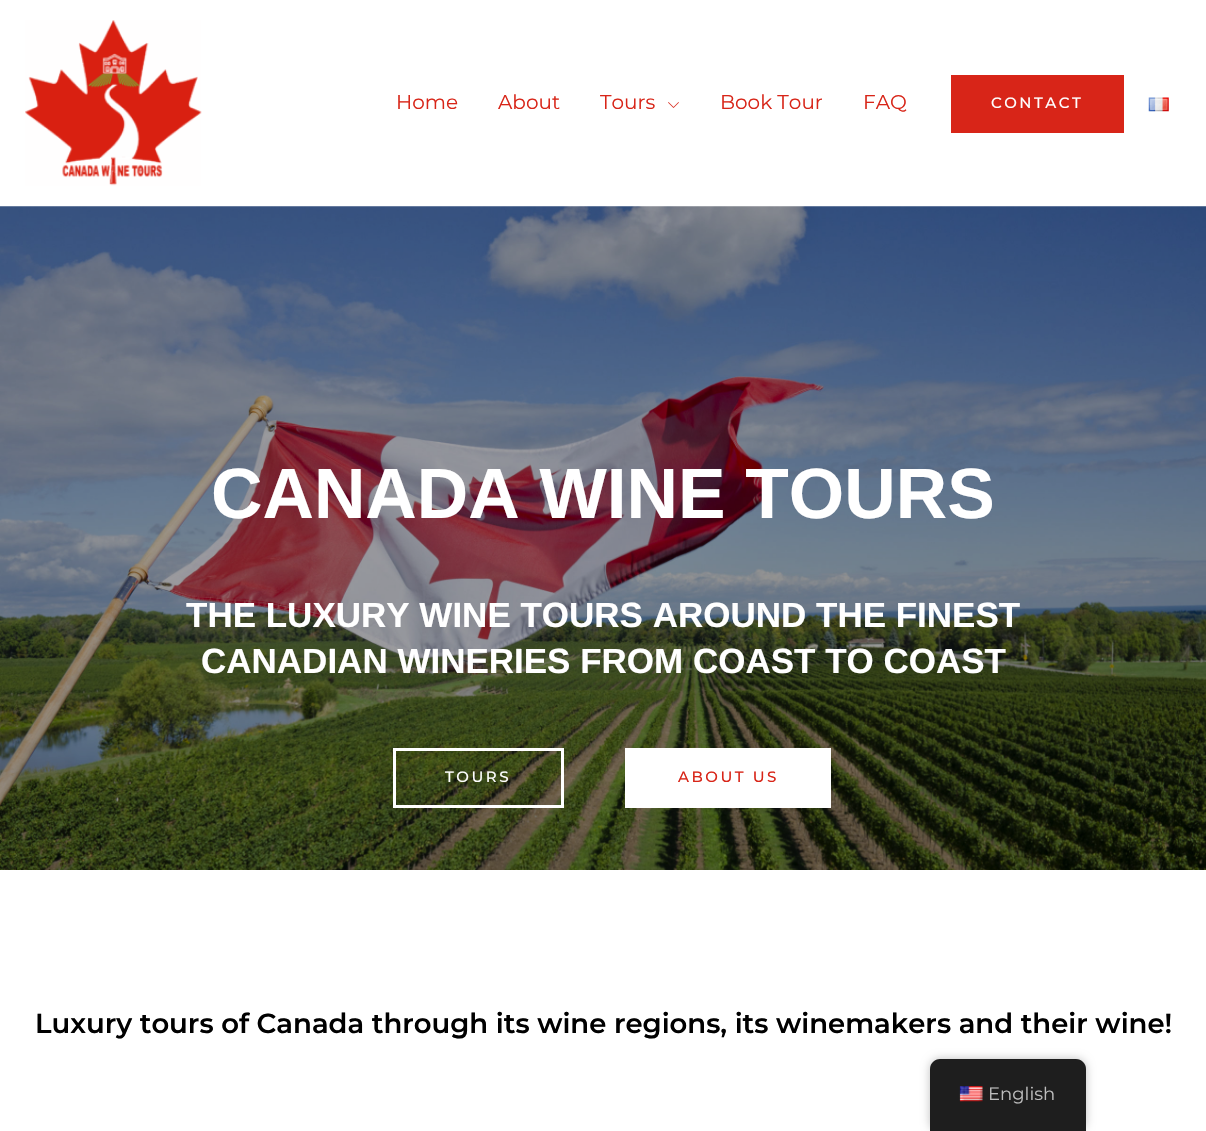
void draw(SkCanvas* c) {
SkPaint p;
p.setAntiAlias(true);
auto F=[&](const char* family, int weight, float size, bool italic = false){SkFontStyle style(weight, SkFontStyle::kNormal_Width,italic ? SkFontStyle::kItalic_Slant : SkFontStyle::kUpright_Slant);SkFont result(fontMgr->matchFamilyStyle(family, style), size);result.setSubpixel(true);return result;};
auto T=[&](const char* s, float x, float y, const SkFont& font){c->drawString(s, x, y, font, p);};
auto L=[&](const char* s, float x, float y, const SkFont& font, const SkPaint& ink, float letter, float word){std::vector<SkGlyphID> glyphs(font.countText(s, strlen(s), SkTextEncoding::kUTF8));std::vector<float> xs(glyphs.size());font.textToGlyphs(s, strlen(s), SkTextEncoding::kUTF8, glyphs);font.getXPos(glyphs, xs, x);float extra = 0;for (size_t i = 0; i < glyphs.size(); i++) {xs[i] += extra;extra += letter + word * (glyphs[i] == font.unicharToGlyph(' '));}c->drawTextBlob(SkTextBlob::MakeFromPosHGlyphs(glyphs, xs, y, font), 0, 0, ink);};
auto R=[&](float x, float y, float w, float h){c->drawRect(SkRect::MakeXYWH(x, y, w, h), p);};
auto I=[&](const char* path, float x, float y, float w, float h){auto image = SkImages::DeferredFromEncodedData(SkData::MakeFromFileName(path));c->drawImageRect(image, SkRect::MakeXYWH(x, y, w, h), SkSamplingOptions());};
auto P=[&](const char* data, bool evenOdd = false){SkPath result = *SkParsePath::FromSVGString(data);if (evenOdd) result.setFillType(SkPathFillType::kEvenOdd);return result;};
c->clear(0xffffffff);
I("1.png",25,20,177,166);
auto f1 = F("Montserrat",400,20);
p.setColor(0xffd82518);
T("Home",396,109,f1);
T("About",498,109,f1);
T("Tours",600,109,f1);
I("2.png",668,102,11,6);
T("Book Tour",720,109,f1);
T("FAQ",863,109,f1);
R(951,75,173,58);
auto f2 = F("Montserrat",500,15);
p.setColor(0xffffffff);
L("CONTACT",991,108,f2,p,2.5,0);
I("3.png",1148,97,21,15);
I("4.png",0,206,1206,664);
auto f3 = F("Liberation Sans",700,71.25);
T("CANADA WINE TOURS",211,518,f3);
auto f4 = F("Liberation Sans",700,35);
T("THE LUXURY WINE TOURS AROUND THE FINEST",186,627,f4);
T("CANADIAN WINERIES FROM COAST TO COAST",201,673,f4);
p.setStroke(true);
p.setStrokeWidth(3);
c->drawRect(SkRect::MakeXYWH(394.5,749.5,168,57),p);
p.setStroke(false);
L("TOURS",445,782,f2,p,2.5,0);
R(625,748,206,60);
p.setColor(0xffd82518);
L("ABOUT US",678,782,f2,p,2.5,0);
auto f5 = F("Montserrat",600,27.5);
p.setColor(0xff000000);
T("Luxury tours of Canada through its wine regions, its winemakers and their wine!",35,1033,f5);
p.setColor(0x40000000);
p.setMaskFilter(SkMaskFilter::MakeBlur(kNormal_SkBlurStyle, 5));
c->drawRoundRect(SkRect::MakeXYWH(930,1059,156,72),10,10,p);
p.setMaskFilter(nullptr);
p.setColor(0xff1e1e1e);
c->drawPath(P("M940 1059h136c5.5 0 10 4.5 10 10v62h-156v-62c0-5.5 4.5-10 10-10z"),p);
I("5.png",959,1086,24,16);
auto f6 = F("Montserrat",400,18);
p.setColor(0xffbdbdbd);
T("English",988,1100,f6);
}
